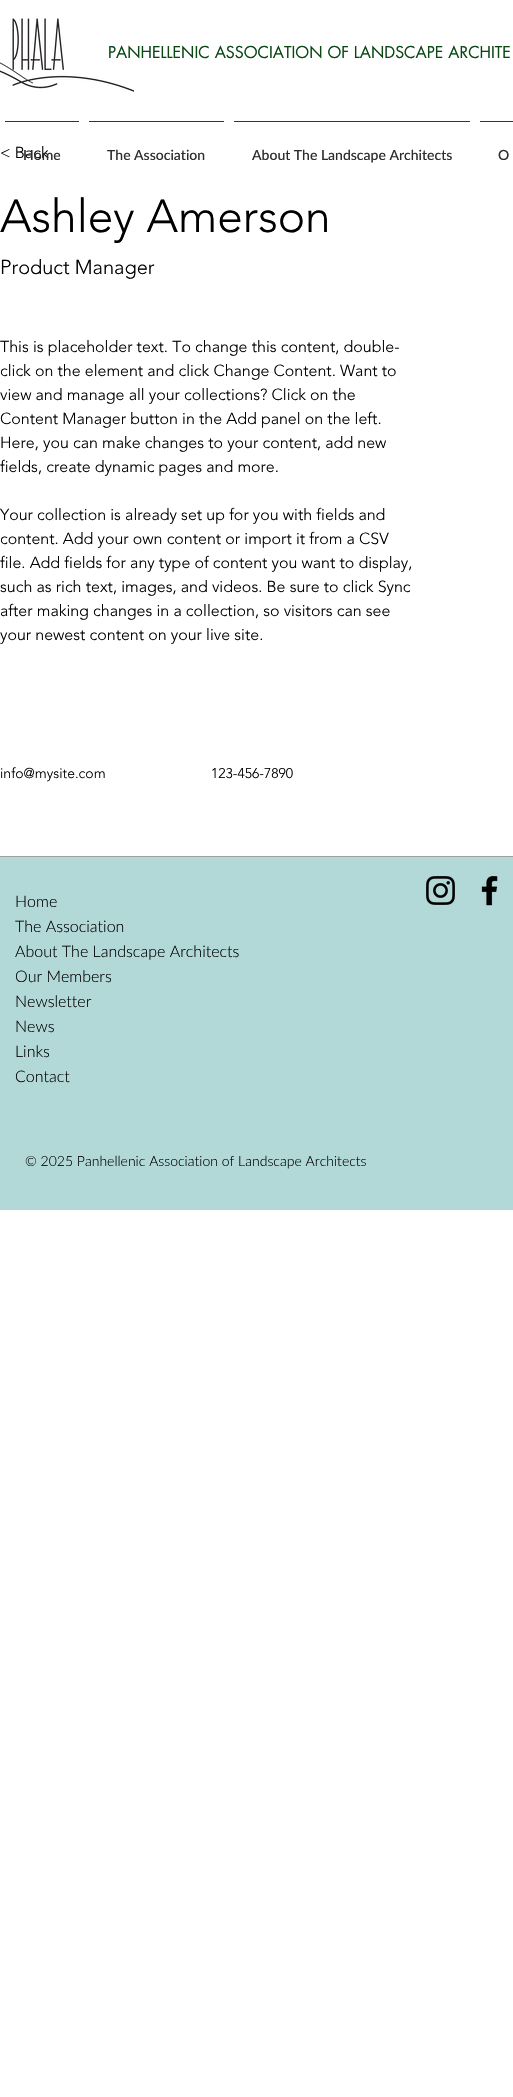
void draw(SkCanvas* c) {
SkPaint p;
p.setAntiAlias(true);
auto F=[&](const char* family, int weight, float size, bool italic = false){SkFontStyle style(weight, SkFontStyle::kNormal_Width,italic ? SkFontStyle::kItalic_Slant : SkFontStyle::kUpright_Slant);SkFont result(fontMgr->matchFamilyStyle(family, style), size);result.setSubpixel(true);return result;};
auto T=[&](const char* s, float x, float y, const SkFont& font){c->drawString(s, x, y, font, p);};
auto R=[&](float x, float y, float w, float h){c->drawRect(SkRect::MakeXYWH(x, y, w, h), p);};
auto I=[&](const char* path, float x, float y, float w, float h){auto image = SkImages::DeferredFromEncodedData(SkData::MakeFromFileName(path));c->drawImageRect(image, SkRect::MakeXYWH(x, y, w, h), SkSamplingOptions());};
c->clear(0xffffffff);
auto f1 = F("futura",400,16);
p.setColor(0xff0a4713);
T("PANHELLENIC ASSOCIATION OF LANDSCAPE ARCHITE",108,58,f1);
I("1.png",0,18,134,74);
auto f2 = F("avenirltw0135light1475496",300,16);
p.setColor(0xff000000);
T("< Back",0,158,f2);
auto f3 = F("avenirltw0135light1475496",300,46);
T("Ashley Amerson",0,232,f3);
auto f4 = F("avenirltw0135light1475496",300,20);
T("Product Manager",0,274,f4);
T("This is placeholder text. To change this content, double-",0,352,f2);
T("click on the element and click Change Content. Want to",0,376,f2);
T("view and manage all your collections? Click on the",0,400,f2);
T("Content Manager button in the Add panel on the left.",0,424,f2);
T("Here, you can make changes to your content, add new",0,448,f2);
T("fields, create dynamic pages and more.",0,472,f2);
T("Your collection is already set up for you with fields and",0,520,f2);
T("content. Add your own content or import it from a CSV",0,544,f2);
T("file. Add fields for any type of content you want to display,",0,568,f2);
T("such as rich text, images, and videos. Be sure to click Sync",0,592,f2);
T("after making changes in a collection, so visitors can see",0,616,f2);
T("your newest content on your live site.",0,640,f2);
auto f5 = F("avenirltw0135light1475496",300,14);
T("info@mysite.com",0,778,f5);
T("123-456-7890",211,778,f5);
p.setColor(0xff004c4c);
R(5,121,74,1);
auto f6 = F("Lato",500,14);
p.setColor(0xff2d2d2d);
T("Home",23,160,f6);
p.setColor(0xff004c4c);
R(89,121,135,1);
p.setColor(0xff2d2d2d);
T("The Association",107,160,f6);
p.setColor(0xff004c4c);
R(234,121,236,1);
p.setColor(0xff2d2d2d);
T("About The Landscape Architects",252,160,f6);
p.setColor(0xff004c4c);
R(480,121,33,1);
p.setColor(0xff2d2d2d);
T("O",498,160,f6);
p.setColor(0xffb2d8d8);
R(0,857,513,353);
p.setColor(0xffa0a09f);
R(0,856,513,1);
I("2.png",426,876,29,29);
I("3.png",481,876,17,30);
auto f7 = F("Lato",300,16);
p.setColor(0xff000000);
T("Home",15,907,f7);
T("The Association",15,932,f7);
T("About The Landscape Architects",15,957,f7);
T("Our Members",15,982,f7);
T("Newsletter",15,1007,f7);
T("News",15,1032,f7);
T("Links",15,1057,f7);
T("Contact",15,1082,f7);
auto f8 = F("Lato",300,14);
T("© 2025 Panhellenic Association of Landscape Architects",25,1166,f8);
}
